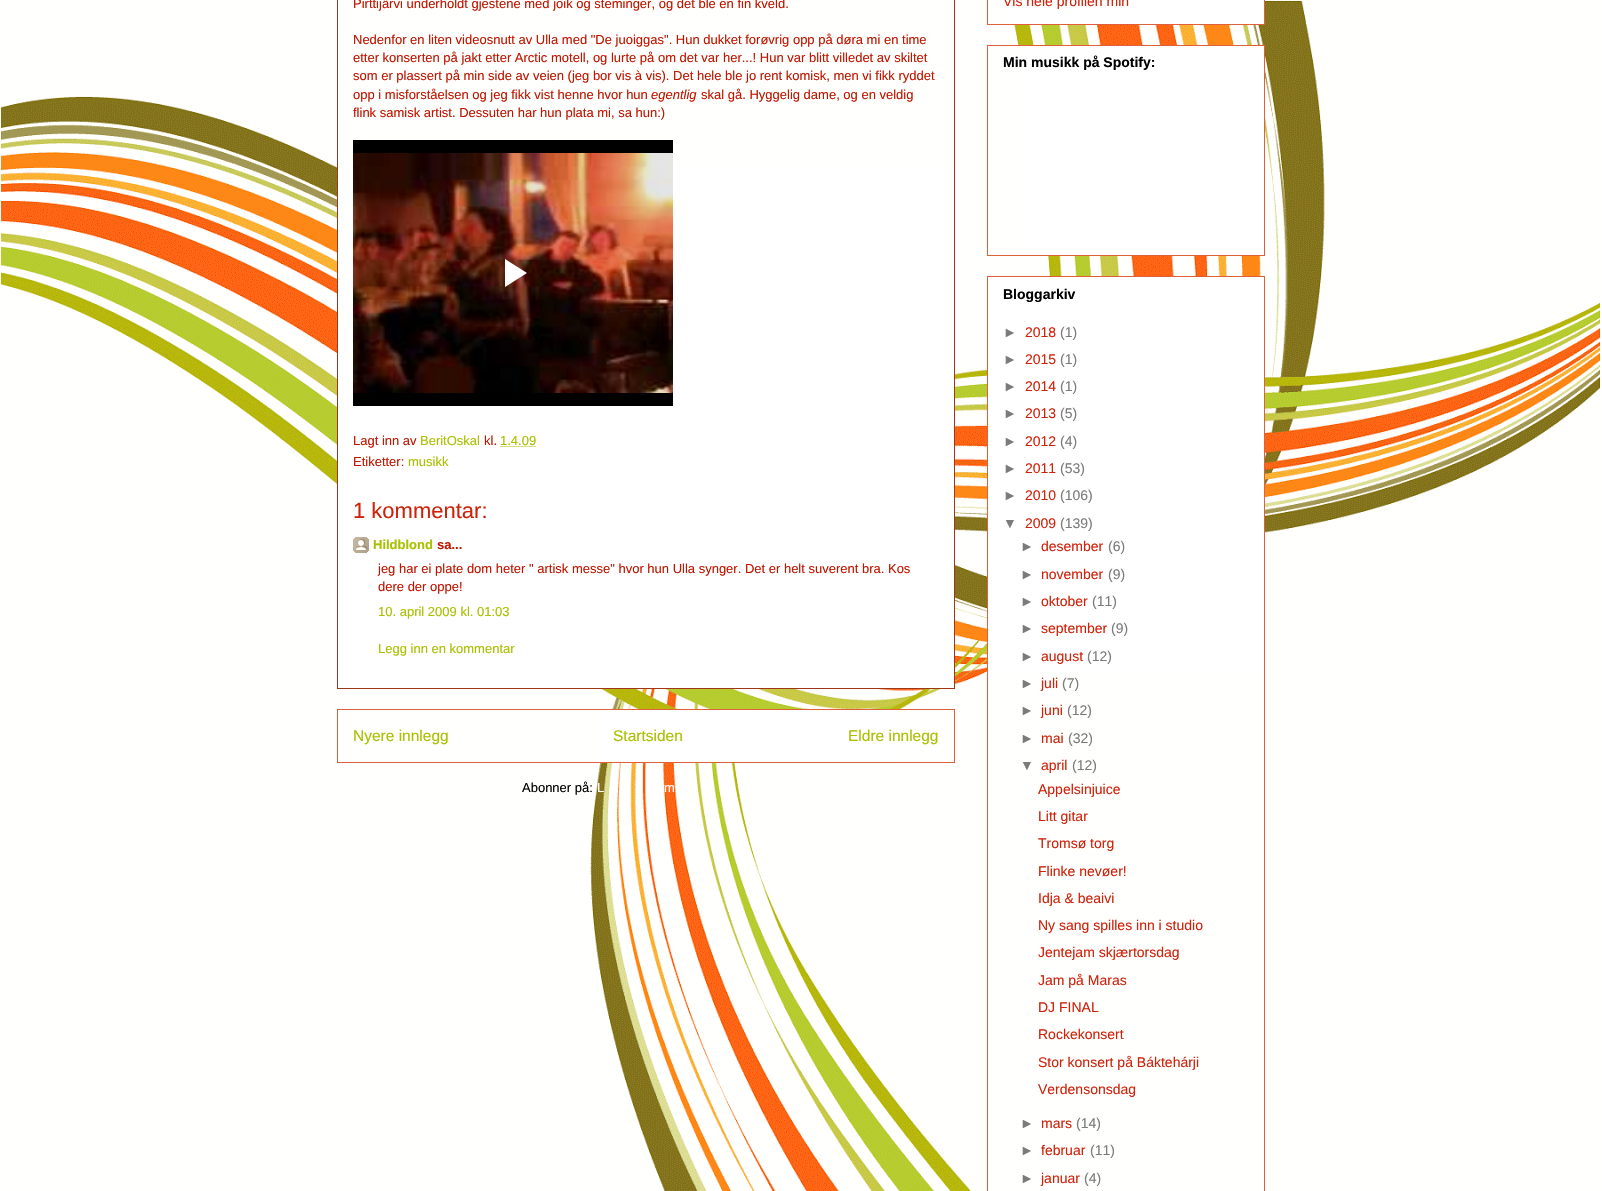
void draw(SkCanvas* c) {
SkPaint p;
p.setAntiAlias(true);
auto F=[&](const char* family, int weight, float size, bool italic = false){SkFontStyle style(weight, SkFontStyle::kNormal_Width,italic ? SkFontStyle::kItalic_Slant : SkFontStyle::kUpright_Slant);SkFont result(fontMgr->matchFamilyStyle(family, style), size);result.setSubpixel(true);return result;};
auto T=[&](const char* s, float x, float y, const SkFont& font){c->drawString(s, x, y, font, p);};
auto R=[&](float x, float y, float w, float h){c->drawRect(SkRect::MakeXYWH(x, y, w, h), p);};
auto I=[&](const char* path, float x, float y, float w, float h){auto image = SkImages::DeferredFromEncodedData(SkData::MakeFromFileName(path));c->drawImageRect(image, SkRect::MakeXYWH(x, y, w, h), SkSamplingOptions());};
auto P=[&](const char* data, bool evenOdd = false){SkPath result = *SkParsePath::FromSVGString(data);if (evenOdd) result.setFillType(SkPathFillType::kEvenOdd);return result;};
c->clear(0xffffffff);
I("1.png",1,0,1600,1191);
p.setColor(0xffffffff);
R(338,168,616,520);
p.setStroke(true);
p.setStrokeWidth(1);
p.setColor(0xffa03618);
c->drawRect(SkRect::MakeXYWH(337.5,-.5,617,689),p);
auto f1 = F("Liberation Sans",400,13);
p.setStroke(false);
p.setColor(0xffc01600);
T("Pirttijärvi underholdt gjestene med joik og steminger, og det ble en fin kveld.",353,8,f1);
T("Nedenfor en liten videosnutt av Ulla med \"De juoiggas\". Hun dukket forøvrig opp på døra mi en time",353,44,f1);
T("etter konserten på jakt etter Arctic motell, og lurte på om det var her...! Hun var blitt villedet av skiltet",353,62,f1);
T("som er plassert på min side av veien (jeg bor vis à vis). Det hele ble jo rent komisk, men vi fikk ryddet",353,80,f1);
T("opp i misforståelsen og jeg fikk vist henne hvor hun",353,99,f1);
auto f2 = F("Liberation Sans",400,13,true);
T("egentlig",651,99,f2);
T("skal gå. Hyggelig dame, og en veldig",701,99,f1);
T("flink samisk artist. Dessuten har hun plata mi, sa hun:)",353,117,f1);
I("2.png",353,140,320,266);
T("Lagt inn av",353,445,f1);
p.setColor(0xffaac000);
T("BeritOskal",420,445,f1);
p.setColor(0xffc01600);
T("kl.",484,445,f1);
p.setColor(0xffaac000);
T("1.4.09",500,445,f1);
p.setStroke(true);
p.setPathEffect(SkDashPathEffect::Make({{1,1}}, 0));
c->drawPath(P("M500.5 446.5h36"),p);
p.setPathEffect(nullptr);
p.setStroke(false);
p.setColor(0xffc01600);
T("Etiketter:",353,466,f1);
p.setColor(0xffaac000);
T("musikk",408,466,f1);
auto f3 = F("Liberation Sans",400,22);
p.setColor(0xffcf220a);
T("1 kommentar:",353,518,f3);
I("3.png",353,537,16,16);
auto f4 = F("Liberation Sans",700,13);
p.setColor(0xffaac000);
T("Hildblond",373,549,f4);
p.setColor(0xffc01600);
T("sa...",437,549,f4);
T("jeg har ei plate dom heter \" artisk messe\" hvor hun Ulla synger. Det er helt suverent bra. Kos",378,573,f1);
T("dere der oppe!",378,591,f1);
p.setColor(0xffaac000);
T("10. april 2009 kl. 01:03",378,616,f1);
T("Legg inn en kommentar",378,653,f1);
p.setColor(0xffffffff);
R(600,710,300,52);
p.setStroke(true);
p.setColor(0xffe0603b);
c->drawRect(SkRect::MakeXYWH(337.5,709.5,617,53),p);
auto f5 = F("Liberation Sans",400,15.5);
p.setStroke(false);
p.setColor(0xffaac000);
T("Nyere innlegg",353,741,f5);
T("Startsiden",613,741,f5);
T("Eldre innlegg",848,741,f5);
p.setColor(0xff000000);
T("Abonner på:",522,792,f1);
p.setColor(0xffffffff);
T("L",597,792,f1);
T("m",664,792,f1);
R(1009,0,255,24);
p.setStroke(true);
p.setColor(0xffe0603b);
c->drawRect(SkRect::MakeXYWH(987.5,-.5,277,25),p);
auto f6 = F("Liberation Sans",400,14);
p.setStroke(false);
p.setColor(0xffcf220a);
T("Vis hele profilen min",1003,6,f6);
p.setColor(0xffffffff);
R(1018,46,246,209);
p.setStroke(true);
p.setColor(0xffe0603b);
c->drawRect(SkRect::MakeXYWH(987.5,45.5,277,210),p);
auto f7 = F("Liberation Sans",700,14);
p.setStroke(false);
p.setColor(0xff000000);
T("Min musikk på Spotify:",1003,67,f7);
p.setColor(0xffffffff);
R(988,277,276,394);
p.setStroke(true);
p.setColor(0xffe0603b);
c->drawRect(SkRect::MakeXYWH(987.5,276.5,277,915),p);
p.setStroke(false);
p.setColor(0xff000000);
T("Bloggarkiv",1003,299,f7);
p.setColor(0xff7b7b7b);
T("►",1003,337,f6);
p.setColor(0xffcf220a);
T("2018",1025,337,f6);
p.setColor(0xff7b7b7b);
T("(1)",1060,337,f6);
T("►",1003,364,f6);
p.setColor(0xffcf220a);
T("2015",1025,364,f6);
p.setColor(0xff7b7b7b);
T("(1)",1060,364,f6);
T("►",1003,391,f6);
p.setColor(0xffcf220a);
T("2014",1025,391,f6);
p.setColor(0xff7b7b7b);
T("(1)",1060,391,f6);
T("►",1003,418,f6);
p.setColor(0xffcf220a);
T("2013",1025,418,f6);
p.setColor(0xff7b7b7b);
T("(5)",1060,418,f6);
T("►",1003,446,f6);
p.setColor(0xffcf220a);
T("2012",1025,446,f6);
p.setColor(0xff7b7b7b);
T("(4)",1060,446,f6);
T("►",1003,473,f6);
p.setColor(0xffcf220a);
T("2011",1025,473,f6);
p.setColor(0xff7b7b7b);
T("(53)",1060,473,f6);
T("►",1003,500,f6);
p.setColor(0xffcf220a);
T("2010",1025,500,f6);
p.setColor(0xff7b7b7b);
T("(106)",1060,500,f6);
T("▼",1003,528,f6);
p.setColor(0xffcf220a);
T("2009",1025,528,f6);
p.setColor(0xff7b7b7b);
T("(139)",1060,528,f6);
T("►",1020,551,f6);
p.setColor(0xffcf220a);
T("desember",1041,551,f6);
p.setColor(0xff7b7b7b);
T("(6)",1108,551,f6);
T("►",1020,579,f6);
p.setColor(0xffcf220a);
T("november",1041,579,f6);
p.setColor(0xff7b7b7b);
T("(9)",1108,579,f6);
T("►",1020,606,f6);
p.setColor(0xffcf220a);
T("oktober",1041,606,f6);
p.setColor(0xff7b7b7b);
T("(11)",1092,606,f6);
T("►",1020,633,f6);
p.setColor(0xffcf220a);
T("september",1041,633,f6);
p.setColor(0xff7b7b7b);
T("(9)",1111,633,f6);
T("►",1020,661,f6);
p.setColor(0xffcf220a);
T("august",1041,661,f6);
p.setColor(0xff7b7b7b);
T("(12)",1087,661,f6);
T("►",1020,688,f6);
p.setColor(0xffcf220a);
T("juli",1041,688,f6);
p.setColor(0xff7b7b7b);
T("(7)",1062,688,f6);
T("►",1020,715,f6);
p.setColor(0xffcf220a);
T("juni",1041,715,f6);
p.setColor(0xff7b7b7b);
T("(12)",1067,715,f6);
T("►",1020,743,f6);
p.setColor(0xffcf220a);
T("mai",1041,743,f6);
p.setColor(0xff7b7b7b);
T("(32)",1068,743,f6);
T("▼",1020,770,f6);
p.setColor(0xffcf220a);
T("april",1041,770,f6);
p.setColor(0xff7b7b7b);
T("(12)",1072,770,f6);
p.setColor(0xffcf220a);
T("Appelsinjuice",1038,794,f6);
T("Litt gitar",1038,821,f6);
T("Tromsø torg",1038,848,f6);
T("Flinke nevøer!",1038,876,f6);
T("Idja & beaivi",1038,903,f6);
T("Ny sang spilles inn i studio",1038,930,f6);
T("Jentejam skjærtorsdag",1038,957,f6);
T("Jam på Maras",1038,985,f6);
T("DJ FINAL",1038,1012,f6);
T("Rockekonsert",1038,1039,f6);
T("Stor konsert på Báktehárji",1038,1067,f6);
T("Verdensonsdag",1038,1094,f6);
p.setColor(0xff7b7b7b);
T("►",1020,1128,f6);
p.setColor(0xffcf220a);
T("mars",1041,1128,f6);
p.setColor(0xff7b7b7b);
T("(14)",1076,1128,f6);
T("►",1020,1155,f6);
p.setColor(0xffcf220a);
T("februar",1041,1155,f6);
p.setColor(0xff7b7b7b);
T("(11)",1090,1155,f6);
T("►",1020,1183,f6);
p.setColor(0xffcf220a);
T("januar",1041,1183,f6);
p.setColor(0xff7b7b7b);
T("(4)",1084,1183,f6);
}
